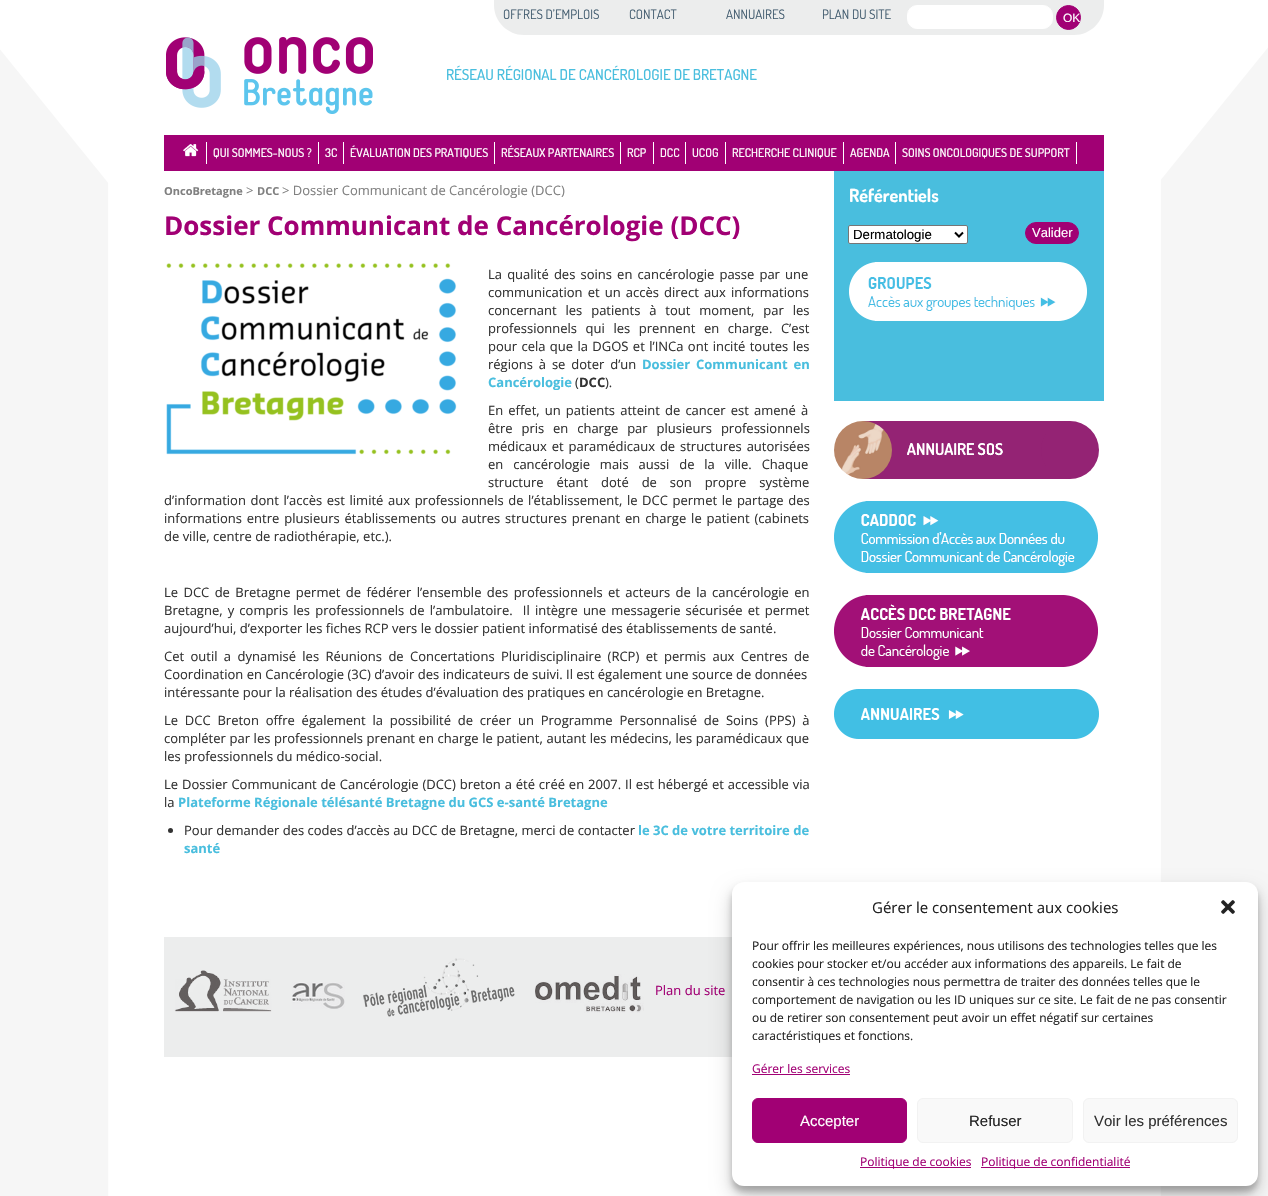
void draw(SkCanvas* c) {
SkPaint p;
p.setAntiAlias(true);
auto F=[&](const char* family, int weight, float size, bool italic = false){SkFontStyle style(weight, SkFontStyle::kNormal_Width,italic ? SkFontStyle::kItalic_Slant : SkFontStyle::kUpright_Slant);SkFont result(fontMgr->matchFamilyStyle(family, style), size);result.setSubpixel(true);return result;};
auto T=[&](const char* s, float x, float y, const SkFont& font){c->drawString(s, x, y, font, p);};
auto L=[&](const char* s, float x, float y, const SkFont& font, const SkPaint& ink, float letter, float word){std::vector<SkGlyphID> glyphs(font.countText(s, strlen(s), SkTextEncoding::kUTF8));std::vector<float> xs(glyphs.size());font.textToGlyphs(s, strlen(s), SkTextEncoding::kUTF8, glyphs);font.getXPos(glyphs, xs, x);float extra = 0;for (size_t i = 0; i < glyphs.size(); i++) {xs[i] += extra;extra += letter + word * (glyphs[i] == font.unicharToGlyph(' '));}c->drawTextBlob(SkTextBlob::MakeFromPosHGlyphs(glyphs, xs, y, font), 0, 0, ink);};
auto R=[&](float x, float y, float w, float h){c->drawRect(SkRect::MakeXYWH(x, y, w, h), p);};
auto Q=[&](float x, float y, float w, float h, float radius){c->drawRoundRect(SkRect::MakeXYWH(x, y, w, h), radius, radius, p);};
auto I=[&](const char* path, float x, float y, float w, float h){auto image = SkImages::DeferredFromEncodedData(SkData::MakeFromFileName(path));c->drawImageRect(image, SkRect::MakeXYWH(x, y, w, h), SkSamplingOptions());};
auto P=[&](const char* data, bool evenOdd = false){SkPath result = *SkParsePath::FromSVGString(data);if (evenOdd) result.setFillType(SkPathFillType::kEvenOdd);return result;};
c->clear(0xffffffff);
I("1.png",0,0,1268,1196);
p.setColor(0xffeceded);
c->drawPath(P("M494 0h610v5c0 16.5-13.5 30-30 30h-550c-16.5 0-30-13.5-30-30z"),p);
auto f1 = F("Dosis",400,13);
p.setColor(0xff425c6f);
T("OFFRES D’EMPLOIS",503,19,f1);
T("CONTACT",629,19,f1);
T("ANNUAIRES",726,19,f1);
T("PLAN DU SITE",822,19,f1);
p.setColor(0xffffffff);
c->drawRoundRect(SkRect::MakeXYWH(907.5,5.5,145,23),9.5,9.5,p);
p.setStroke(true);
p.setStrokeWidth(1);
c->drawRoundRect(SkRect::MakeXYWH(907.5,5.5,145,23),9.5,9.5,p);
p.setStroke(false);
p.setColor(0xffa10074);
c->drawCircle(1068.5,17.5,12,p);
p.setStroke(true);
c->drawCircle(1068.5,17.5,12,p);
auto f2 = F("Liberation Sans",400,12);
p.setStroke(false);
p.setColor(0xffffffff);
T("OK",1063,22,f2);
I("2.png",166,37,207,77);
auto f3 = F("Dosis",500,15);
p.setColor(0xff49bede);
T("RÉSEAU RÉGIONAL DE CANCÉROLOGIE DE BRETAGNE",446,80,f3);
p.setColor(0xffa10074);
R(164,135,940,36);
p.setColor(0xffffffff);
R(206,142,1,22);
I("3.png",183,144,16,13);
R(318,142,1,22);
auto f4 = F("Dosis",500,12);
T("QUI SOMMES-NOUS ?",213,157,f4);
R(343,142,1,22);
T("3C",325,157,f4);
R(494,142,1,22);
T("ÉVALUATION DES PRATIQUES",350,157,f4);
R(620,142,1,22);
T("RÉSEAUX PARTENAIRES",501,157,f4);
R(653,142,1,22);
T("RCP",627,157,f4);
R(685,142,1,22);
T("DCC",660,157,f4);
R(725,142,1,22);
T("UCOG",692,157,f4);
R(843,142,1,22);
T("RECHERCHE CLINIQUE",732,157,f4);
R(895,142,1,22);
T("AGENDA",850,157,f4);
R(1076,142,1,22);
T("SOINS ONCOLOGIQUES DE SUPPORT",902,157,f4);
auto f5 = F("Open Sans",700,11);
p.setColor(0xff808080);
T("OncoBretagne",164,195,f5);
auto f6 = F("Open Sans",400,13);
T(">",246,195,f6);
T("DCC",257,195,f5);
T("> Dossier Communicant de Cancérologie (DCC)",282,195,f6);
auto f7 = F("Open Sans",700,26);
p.setColor(0xffa10074);
T("Dossier Communicant de Cancérologie (DCC)",164,235,f7);
I("4.png",166,263,291,192);
p.setColor(0xff333333);
L("La qualité des soins en cancérologie passe par une",488,279,f6,p,0,1.75);
L("communication et un accès direct aux informations",488,297,f6,p,0,1.75);
L("concernant les patients à tout moment, par les",488,315,f6,p,0,5.5);
L("professionnels qui les prennent en charge. C’est",488,333,f6,p,0,5.25);
L("pour cela que la DGOS et l’INCa ont incité toutes les",488,351,f6,p,0,1);
L("régions à se doter d’un",488,369,f6,p,0,2.5);
auto f8 = F("Open Sans",700,13);
p.setColor(0xff49bede);
L("Dossier Communicant en",642,369,f8,p,0,2.5);
T("Cancérologie",488,387,f8);
p.setColor(0xff333333);
T("(",575,387,f6);
T("DCC",579,387,f8);
T(").",605,387,f6);
L("En effet, un patients atteint de cancer est amené à",488,415,f6,p,0,1.75);
L("être pris en charge par plusieurs professionnels",488,433,f6,p,0,5.5);
L("médicaux et paramédicaux de structures autorisées",488,451,f6,p,0,1.5);
L("en cancérologie mais aussi de la ville. Chaque",488,469,f6,p,0,6.5);
L("structure étant doté de son propre système",488,487,f6,p,0,9.5);
L("d’information dont l’accès est limité aux professionnels de l’établissement, le DCC permet le partage des",164,505,f6,p,0,1.25);
L("informations entre plusieurs établissements ou autres structures prenant en charge le patient (cabinets",164,523,f6,p,0,1.5);
T("de ville, centre de radiothérapie, etc.).",164,541,f6);
L("Le DCC de Bretagne permet de fédérer l’ensemble des professionnels et acteurs de la cancérologie en",164,597,f6,p,0,2);
L("Bretagne, y compris les professionnels de l’ambulatoire.  Il intègre une messagerie sécurisée et permet",164,615,f6,p,0,1.75);
T("aujourd’hui, d’exporter les fiches RCP vers le dossier patient informatisé des établissements de santé.",164,633,f6);
L("Cet outil a dynamisé les Réunions de Concertations Pluridisciplinaire (RCP) et permis aux Centres de",164,661,f6,p,0,3);
T("Coordination en Cancérologie (3C) d’avoir des indicateurs de suivi. Il est également une source de données",164,679,f6);
T("intéressante pour la réalisation des études d’évaluation des pratiques en cancérologie en Bretagne.",164,697,f6);
L("Le DCC Breton offre également la possibilité de créer un Programme Personnalisé de Soins (PPS) à",164,725,f6,p,0,3.4);
L("compléter par les professionnels prenant en charge le patient, autant les médecins, les paramédicaux que",164,743,f6,p,0,.25);
T("les professionnels du médico-social.",164,761,f6);
L("Le Dossier Communicant de Cancérologie (DCC) breton a été créé en 2007. Il est hébergé et accessible via",164,789,f6,p,0,.5);
T("la",164,807,f6);
p.setColor(0xff49bede);
T("Plateforme Régionale télésanté Bretagne du GCS e-santé Bretagne",178,807,f8);
p.setColor(0xff333333);
c->drawCircle(170.5,830.5,2.5,p);
T("Pour demander des codes d’accès au DCC de Bretagne, merci de contacter",184,835,f6);
p.setColor(0xff49bede);
T("le 3C de votre territoire de",638,835,f8);
T("santé",184,853,f8);
R(834,171,270,230);
auto f9 = F("Dosis",700,18);
p.setColor(0xffffffff);
T("Référentiels",849,202,f9);
c->drawRoundRect(SkRect::MakeXYWH(848.5,225.5,119,18),1.5,1.5,p);
p.setStroke(true);
p.setColor(0xff767676);
c->drawRoundRect(SkRect::MakeXYWH(848.5,225.5,119,18),1.5,1.5,p);
p.setStrokeWidth(2);
p.setColor(0xff000000);
c->drawPath(P("M955 232.5l4 4l4-4"),p);
auto f10 = F("Liberation Sans",400,13.25);
p.setStroke(false);
T("Dermatologie",853,239,f10);
p.setColor(0xffa10074);
c->drawRoundRect(SkRect::MakeXYWH(1025.5,222.5,53,21),10.5,10.5,p);
p.setStroke(true);
p.setStrokeWidth(1);
c->drawRoundRect(SkRect::MakeXYWH(1025.5,222.5,53,21),10.5,10.5,p);
auto f11 = F("Liberation Sans",400,13);
p.setStroke(false);
p.setColor(0xffffffff);
T("Valider",1032,237,f11);
I("5.png",849,262,238,59);
I("6.png",834,421,265,58);
I("7.png",834,501,264,72);
I("8.png",834,595,264,72);
I("9.png",834,689,265,50);
p.setColor(0xffeceded);
R(164,937,568,120);
I("10.png",174,970,98,42);
I("11.png",292,982,53,27);
I("12.png",363,958,152,59);
I("13.png",535,974,109,39);
p.setColor(0xffa10074);
T("Plan du site",655,995,f6);
p.setColor(0x3b000000);
p.setMaskFilter(SkMaskFilter::MakeBlur(kNormal_SkBlurStyle, 3));
c->drawRoundRect(SkRect::MakeXYWH(732,888,526,304),12,12,p);
p.setMaskFilter(nullptr);
p.setColor(0x30000000);
p.setMaskFilter(SkMaskFilter::MakeBlur(kNormal_SkBlurStyle, 10));
c->drawRoundRect(SkRect::MakeXYWH(732,892,526,304),12,12,p);
p.setMaskFilter(nullptr);
p.setColor(0xffffffff);
Q(732,882,526,304,12);
auto f12 = F("Open Sans",400,15);
p.setColor(0xff222222);
T("Gérer le consentement aux cookies",872,913,f12);
I("14.png",1221,900,14,14);
auto f13 = F("Open Sans",400,12);
T("Pour offrir les meilleures expériences, nous utilisons des technologies telles que les",752,950,f13);
T("cookies pour stocker et/ou accéder aux informations des appareils. Le fait de",752,968,f13);
T("consentir à ces technologies nous permettra de traiter des données telles que le",752,986,f13);
T("comportement de navigation ou les ID uniques sur ce site. Le fait de ne pas consentir",752,1004,f13);
T("ou de retirer son consentement peut avoir un effet négatif sur certaines",752,1022,f13);
T("caractéristiques et fonctions.",752,1040,f13);
p.setColor(0xffa10074);
T("Gérer les services",752,1073,f13);
R(752,1074,98,1);
c->drawRoundRect(SkRect::MakeXYWH(752.5,1098.5,154,44),5.5,5.5,p);
p.setStroke(true);
c->drawRoundRect(SkRect::MakeXYWH(752.5,1098.5,154,44),5.5,5.5,p);
auto f14 = F("Liberation Sans",400,15);
p.setStroke(false);
p.setColor(0xffffffff);
T("Accepter",800,1126,f14);
p.setColor(0xfff9f9f9);
c->drawRoundRect(SkRect::MakeXYWH(917.5,1098.5,155,44),5.5,5.5,p);
p.setStroke(true);
p.setColor(0xfff2f2f2);
c->drawRoundRect(SkRect::MakeXYWH(917.5,1098.5,155,44),5.5,5.5,p);
p.setStroke(false);
p.setColor(0xff222222);
T("Refuser",969,1126,f14);
p.setColor(0xfff9f9f9);
c->drawRoundRect(SkRect::MakeXYWH(1083.5,1098.5,154,44),5.5,5.5,p);
p.setStroke(true);
p.setColor(0xfff2f2f2);
c->drawRoundRect(SkRect::MakeXYWH(1083.5,1098.5,154,44),5.5,5.5,p);
p.setStroke(false);
p.setColor(0xff333333);
T("Voir les préférences",1094,1126,f14);
p.setColor(0xffa10074);
R(860,1167,111,1);
T("Politique de cookies",860,1166,f13);
R(981,1167,149,1);
T("Politique de confidentialité",981,1166,f13);
}
